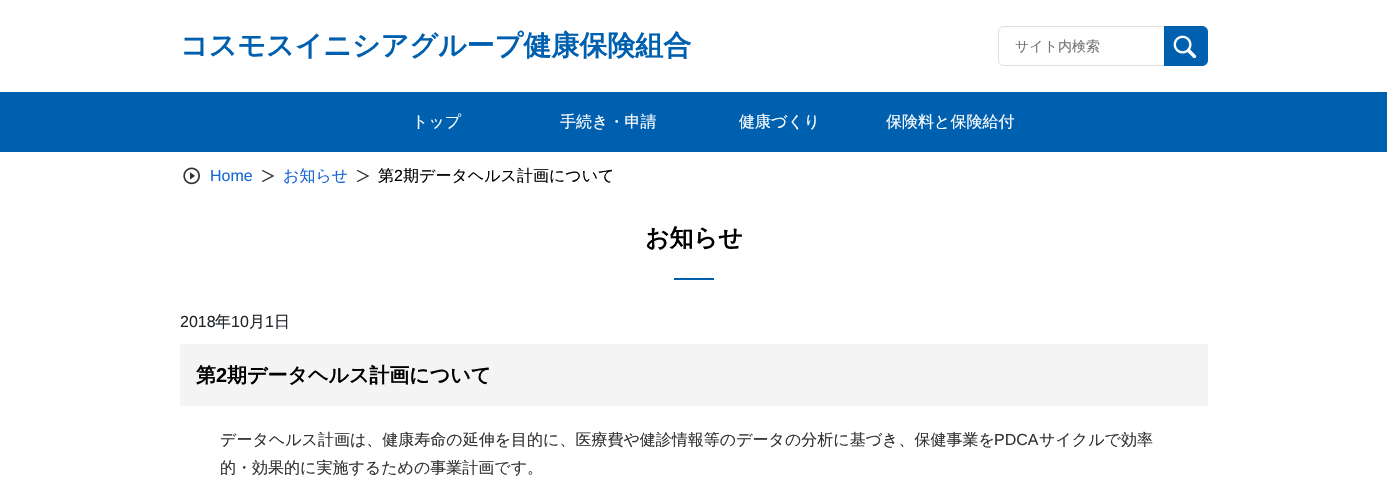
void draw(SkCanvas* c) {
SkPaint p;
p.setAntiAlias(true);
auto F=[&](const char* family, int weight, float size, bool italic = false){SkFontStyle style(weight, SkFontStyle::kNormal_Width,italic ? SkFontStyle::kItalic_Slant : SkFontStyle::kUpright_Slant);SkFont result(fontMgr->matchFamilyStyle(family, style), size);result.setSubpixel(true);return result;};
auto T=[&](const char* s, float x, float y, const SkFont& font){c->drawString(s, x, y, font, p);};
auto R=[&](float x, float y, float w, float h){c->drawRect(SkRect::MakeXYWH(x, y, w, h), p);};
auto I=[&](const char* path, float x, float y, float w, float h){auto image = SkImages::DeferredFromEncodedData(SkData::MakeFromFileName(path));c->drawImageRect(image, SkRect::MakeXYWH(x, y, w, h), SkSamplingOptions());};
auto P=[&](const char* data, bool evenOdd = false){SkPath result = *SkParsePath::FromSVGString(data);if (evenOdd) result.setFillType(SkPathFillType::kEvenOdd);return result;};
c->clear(0xffffffff);
auto f1 = F("WenQuanYi Zen Hei",700,28);
p.setColor(0xff0060b0);
T("コスモスイニシアグループ健康保険組合",180,55,f1);
p.setStroke(true);
p.setStrokeWidth(1);
p.setColor(0xffdddddd);
c->drawPath(P("M1004 26.5h160.5v39h-160.5c-3 0-5.5-2.5-5.5-5.5v-28c0-3 2.5-5.5 5.5-5.5z"),p);
auto f2 = F("WenQuanYi Zen Hei",500,14);
p.setStroke(false);
p.setColor(0xff737373);
T("サイト内検索",1015,51,f2);
p.setColor(0xff0060b0);
c->drawPath(P("M1164 26h38c3.5 0 6 2.5 6 6v28c0 3.5-2.5 6-6 6h-38z"),p);
I("1.png",1173,35,24,24);
R(0,92,1387,60);
auto f3 = F("WenQuanYi Zen Hei",500,16);
p.setColor(0xffffffff);
T("トップ",412,127,f3);
T("手続き・申請",560,127,f3);
T("健康づくり",739,127,f3);
T("保険料と保険給付",886,127,f3);
I("2.png",183,167,17,18);
auto f4 = F("Liberation Sans",400,16);
p.setColor(0xff1967d2);
T("Home",210,181,f4);
I("3.png",261,169,14,14);
T("お知らせ",283,181,f3);
I("3.png",356,169,14,14);
p.setColor(0xff000000);
T("第",378,181,f3);
T("2",394,181,f4);
T("期データヘルス計画について",403,181,f3);
auto f5 = F("WenQuanYi Zen Hei",700,24);
T("お知らせ",645,246,f5);
p.setColor(0xff0060b0);
R(674,278,40,2);
p.setColor(0xff212529);
T("2018",180,327,f4);
T("年",215,327,f3);
T("10",231,327,f4);
T("月",249,327,f3);
T("1",265,327,f4);
T("日",274,327,f3);
p.setColor(0xfff4f4f4);
R(180,344,1028,62);
auto f6 = F("WenQuanYi Zen Hei",700,20);
p.setColor(0xff000000);
T("第",196,382,f6);
auto f7 = F("Liberation Sans",700,20);
T("2",216,382,f7);
T("期データヘルス計画について",227,382,f6);
p.setColor(0xff333333);
T("データヘルス計画は、健康寿命の延伸を目的に、医療費や健診情報等のデータの分析に基づき、保健事業を",220,445,f3);
T("PDCA",994,445,f4);
T("サイクルで効率",1039,445,f3);
T("的・効果的に実施するための事業計画です。",220,473,f3);
}
